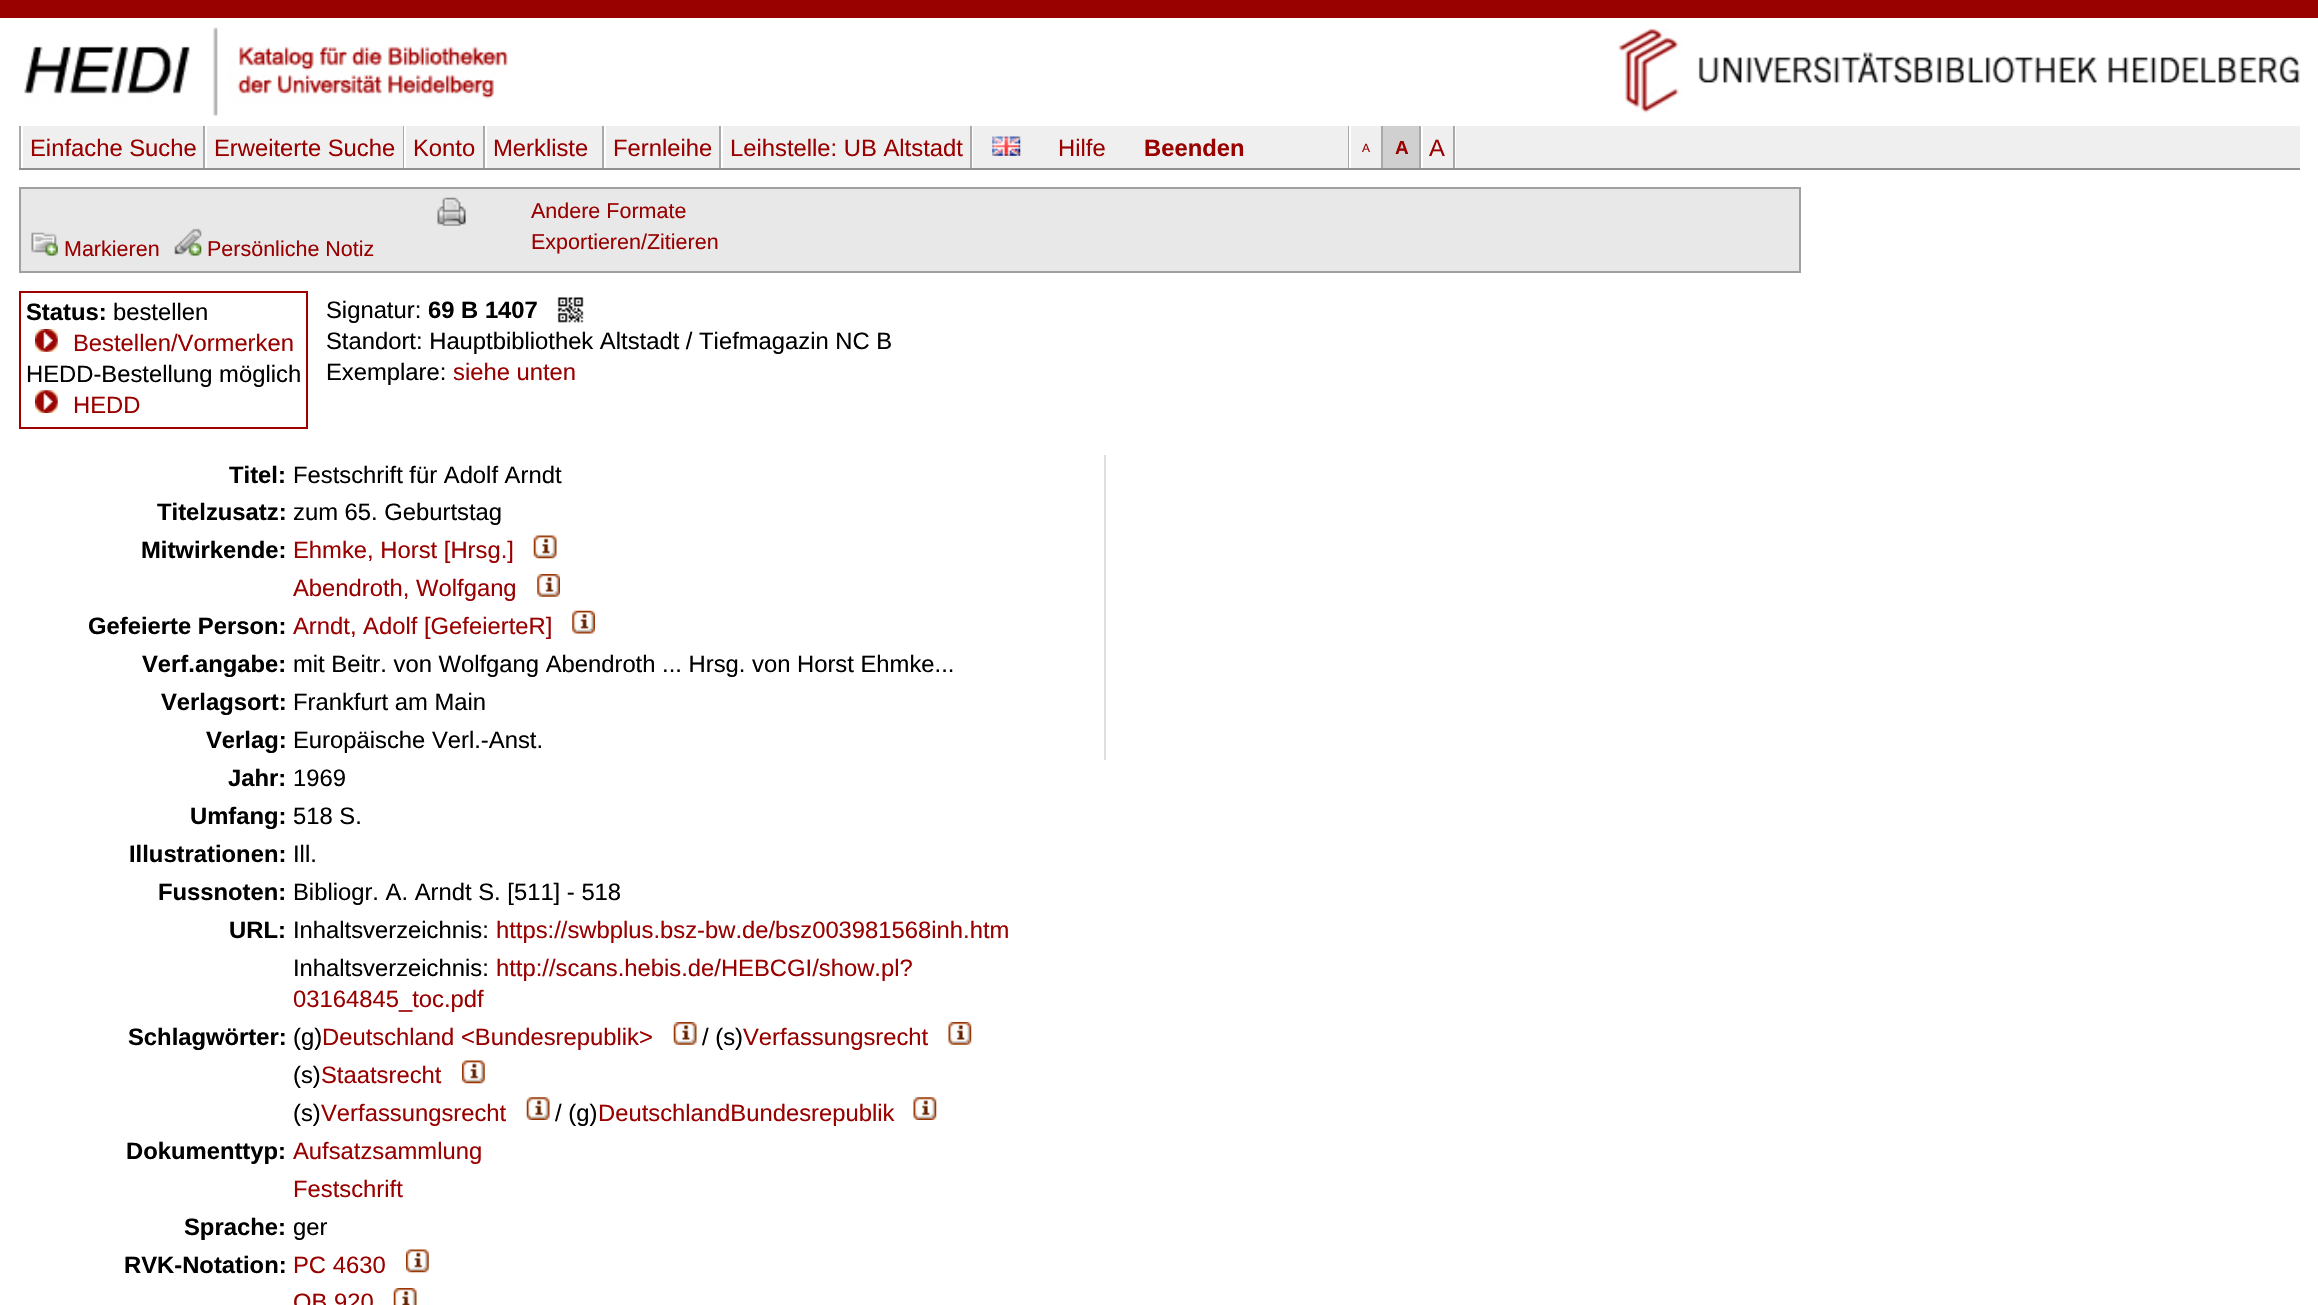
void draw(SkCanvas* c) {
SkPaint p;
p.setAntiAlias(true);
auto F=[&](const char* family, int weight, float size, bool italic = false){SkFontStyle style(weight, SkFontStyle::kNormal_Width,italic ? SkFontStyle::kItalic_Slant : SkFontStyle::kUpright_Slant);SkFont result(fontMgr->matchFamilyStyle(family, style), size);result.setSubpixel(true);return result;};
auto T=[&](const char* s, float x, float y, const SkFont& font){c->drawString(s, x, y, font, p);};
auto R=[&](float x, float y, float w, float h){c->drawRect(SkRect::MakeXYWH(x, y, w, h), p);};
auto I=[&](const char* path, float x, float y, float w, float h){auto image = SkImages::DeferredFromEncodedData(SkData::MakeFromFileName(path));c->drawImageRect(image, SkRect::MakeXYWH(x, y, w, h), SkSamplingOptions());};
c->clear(0xffffffff);
p.setColor(0xff990000);
R(0,0,2318,18);
I("1.png",24,27,484,89);
I("2.png",1618,28,682,85);
p.setColor(0xffefefef);
R(23,126,2277,42);
p.setColor(0xff909090);
R(19,168,2281,2);
p.setColor(0xffffffff);
R(972,126,1,42);
p.setColor(0xffaaaaaa);
R(19,126,2,42);
R(203,126,2,42);
auto f1 = F("Liberation Sans",400,23.8);
p.setColor(0xff990000);
T("Einfache Suche",30,156,f1);
p.setColor(0xffaaaaaa);
R(403,126,1,42);
p.setColor(0xffffffff);
R(205,126,2,42);
p.setColor(0xff990000);
T("Erweiterte Suche",214,156,f1);
p.setColor(0xffaaaaaa);
R(483,126,2,42);
p.setColor(0xffffffff);
R(404,126,2,42);
p.setColor(0xff990000);
T("Konto",413,156,f1);
p.setColor(0xffaaaaaa);
R(602,126,2,42);
p.setColor(0xffffffff);
R(485,126,2,42);
p.setColor(0xff990000);
T("Merkliste",493,156,f1);
p.setColor(0xffaaaaaa);
R(719,126,2,42);
p.setColor(0xffffffff);
R(604,126,2,42);
p.setColor(0xff990000);
T("Fernleihe",613,156,f1);
p.setColor(0xffaaaaaa);
R(970,126,2,42);
p.setColor(0xffffffff);
R(721,126,2,42);
p.setColor(0xff990000);
T("Leihstelle: UB Altstadt",730,156,f1);
I("3.png",992,136,29,20);
T("Hilfe",1058,156,f1);
auto f2 = F("Liberation Sans",700,23.8);
T("Beenden",1144,156,f2);
p.setColor(0xffffffff);
R(1455,126,1,42);
p.setColor(0xffaaaaaa);
R(1348,126,1,42);
R(1381,126,2,42);
p.setColor(0xffffffff);
R(1349,126,2,42);
auto f3 = F("Liberation Sans",400,12);
p.setColor(0xff990000);
T("A",1362,152,f3);
p.setColor(0xffd0d0d0);
R(1383,126,36,42);
p.setColor(0xffaaaaaa);
R(1419,126,2,42);
auto f4 = F("Liberation Sans",700,19);
p.setColor(0xff990000);
T("A",1395,154,f4);
p.setColor(0xffaaaaaa);
R(1453,126,2,42);
p.setColor(0xffffffff);
R(1421,126,2,42);
p.setColor(0xff990000);
T("A",1429,156,f1);
p.setColor(0xffe8e8e8);
c->drawRect(SkRect::MakeXYWH(20,188,1780,84),p);
p.setStroke(true);
p.setStrokeWidth(2);
p.setColor(0xffa0a0a0);
c->drawRect(SkRect::MakeXYWH(20,188,1780,84),p);
I("4.png",31,232,27,24);
auto f5 = F("Liberation Sans",400,21.5);
p.setStroke(false);
p.setColor(0xff990000);
T("Markieren",64,256,f5);
I("5.png",174,228,28,28);
T("Persönliche Notiz",207,256,f5);
I("6.png",437,197,29,29);
T("Andere Formate",531,218,f5);
T("Exportieren/Zitieren",531,249,f5);
p.setStroke(true);
p.setColor(0xffa00000);
c->drawRect(SkRect::MakeXYWH(20,292,287,136),p);
p.setStroke(false);
p.setColor(0xff000000);
T("Status:",26,320,f2);
T("bestellen",113,320,f1);
I("7.png",35,329,23,23);
p.setColor(0xff990000);
T("Bestellen/Vormerken",73,351,f1);
p.setColor(0xff000000);
T("HEDD-Bestellung möglich",26,382,f1);
I("8.png",35,390,23,23);
p.setColor(0xff990000);
T("HEDD",73,413,f1);
p.setColor(0xff000000);
T("Signatur:",326,318,f1);
T("69 B 1407",428,318,f2);
I("9.png",557,297,27,26);
T("Standort: Hauptbibliothek Altstadt / Tiefmagazin NC B",326,349,f1);
T("Exemplare:",326,380,f1);
p.setColor(0xff990000);
T("siehe unten",453,380,f1);
p.setColor(0xff000000);
T("Titel:",229,483,f2);
T("Festschrift für Adolf Arndt",293,483,f1);
T("Titelzusatz:",157,520,f2);
T("zum 65. Geburtstag",293,520,f1);
T("Mitwirkende:",141,558,f2);
p.setColor(0xff990000);
T("Ehmke, Horst [Hrsg.]",293,558,f1);
I("10.png",533,535,24,24);
T("Abendroth, Wolfgang",293,596,f1);
I("11.png",537,574,23,23);
p.setColor(0xff000000);
T("Gefeierte Person:",88,634,f2);
p.setColor(0xff990000);
T("Arndt, Adolf [GefeierteR]",293,634,f1);
I("12.png",572,610,23,24);
p.setColor(0xff000000);
T("Verf.angabe:",142,672,f2);
T("mit Beitr. von Wolfgang Abendroth ... Hrsg. von Horst Ehmke...",293,672,f1);
T("Verlagsort:",161,710,f2);
T("Frankfurt am Main",293,710,f1);
T("Verlag:",206,748,f2);
T("Europäische Verl.-Anst.",293,748,f1);
T("Jahr:",228,786,f2);
T("1969",293,786,f1);
T("Umfang:",190,824,f2);
T("518 S.",293,824,f1);
T("Illustrationen:",129,862,f2);
T("Ill.",293,862,f1);
T("Fussnoten:",158,900,f2);
T("Bibliogr. A. Arndt S. [511] - 518",293,900,f1);
T("URL:",229,938,f2);
T("Inhaltsverzeichnis:",293,938,f1);
p.setColor(0xff990000);
T("https://swbplus.bsz-bw.de/bsz003981568inh.htm",496,938,f1);
p.setColor(0xff000000);
T("Inhaltsverzeichnis:",293,976,f1);
p.setColor(0xff990000);
T("http://scans.hebis.de/HEBCGI/show.pl?",496,976,f1);
T("03164845_toc.pdf",293,1007,f1);
p.setColor(0xff000000);
T("Schlagwörter:",128,1045,f2);
T("(g)",293,1045,f1);
p.setColor(0xff990000);
T("Deutschland <Bundesrepublik>",322,1045,f1);
I("13.png",673,1022,24,23);
p.setColor(0xff000000);
T("/ (s)",702,1045,f1);
p.setColor(0xff990000);
T("Verfassungsrecht",743,1045,f1);
I("14.png",948,1022,24,23);
p.setColor(0xff000000);
T("(s)",293,1083,f1);
p.setColor(0xff990000);
T("Staatsrecht",321,1083,f1);
I("15.png",462,1060,23,24);
p.setColor(0xff000000);
T("(s)",293,1121,f1);
p.setColor(0xff990000);
T("Verfassungsrecht",321,1121,f1);
I("16.png",526,1097,24,23);
p.setColor(0xff000000);
T("/ (g)",555,1121,f1);
p.setColor(0xff990000);
T("DeutschlandBundesrepublik",598,1121,f1);
I("17.png",913,1097,24,23);
p.setColor(0xff000000);
T("Dokumenttyp:",126,1159,f2);
p.setColor(0xff990000);
T("Aufsatzsammlung",293,1159,f1);
T("Festschrift",293,1197,f1);
p.setColor(0xff000000);
T("Sprache:",184,1235,f2);
T("ger",293,1235,f1);
T("RVK-Notation:",124,1273,f2);
p.setColor(0xff990000);
T("PC 4630",293,1273,f1);
I("15.png",406,1249,23,24);
T("QB 920",293,1310,f1);
I("18.png",393,1288,24,17);
p.setColor(0xffdedede);
R(1104,455,2,305);
}
